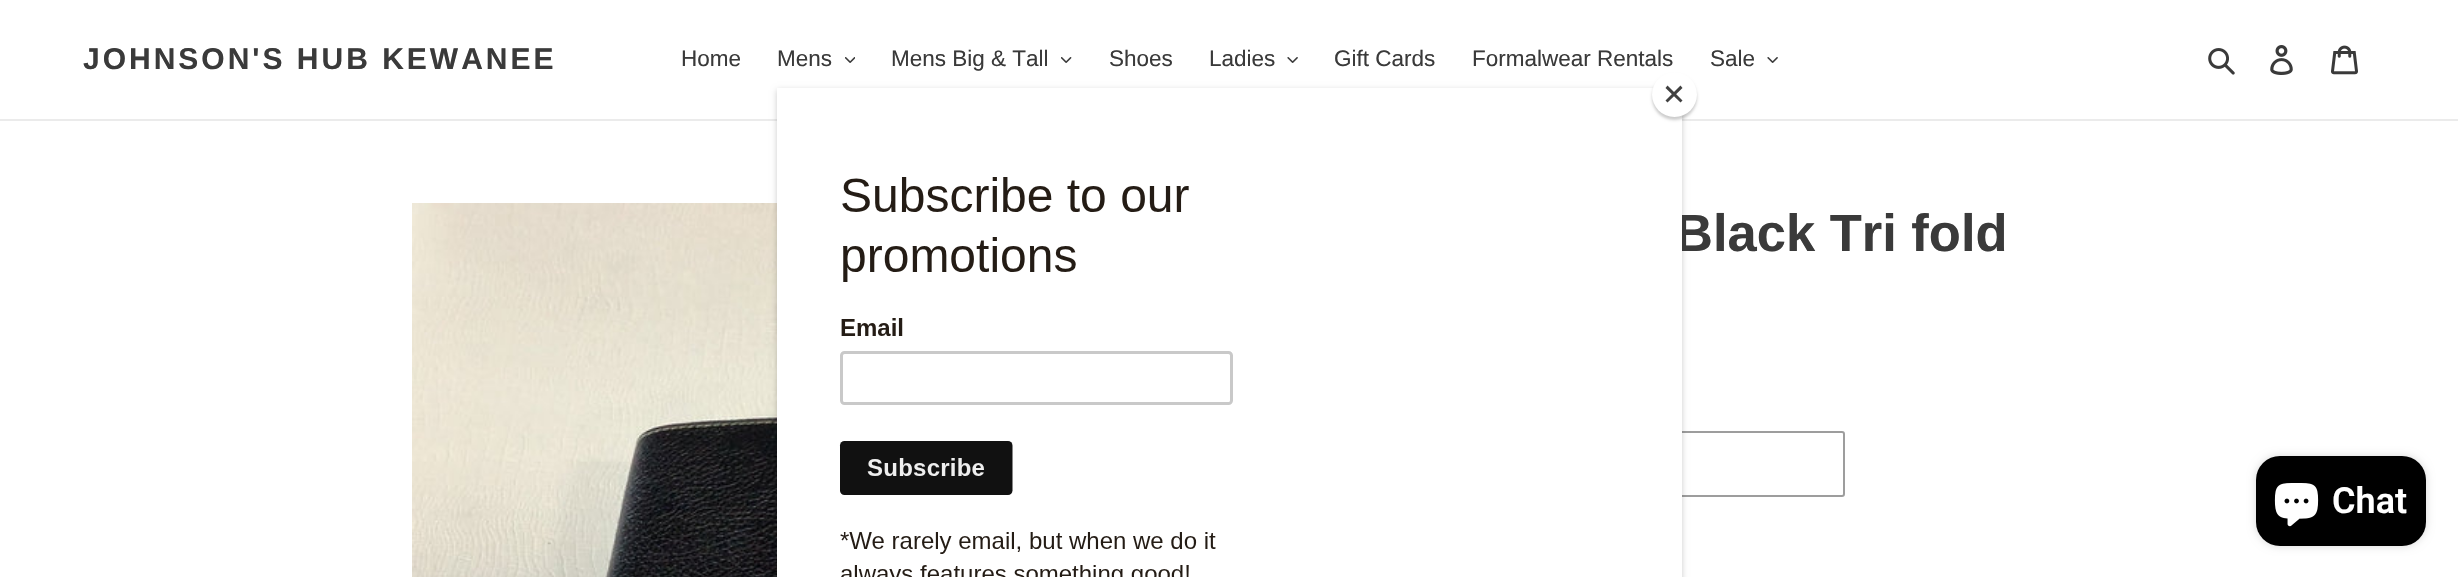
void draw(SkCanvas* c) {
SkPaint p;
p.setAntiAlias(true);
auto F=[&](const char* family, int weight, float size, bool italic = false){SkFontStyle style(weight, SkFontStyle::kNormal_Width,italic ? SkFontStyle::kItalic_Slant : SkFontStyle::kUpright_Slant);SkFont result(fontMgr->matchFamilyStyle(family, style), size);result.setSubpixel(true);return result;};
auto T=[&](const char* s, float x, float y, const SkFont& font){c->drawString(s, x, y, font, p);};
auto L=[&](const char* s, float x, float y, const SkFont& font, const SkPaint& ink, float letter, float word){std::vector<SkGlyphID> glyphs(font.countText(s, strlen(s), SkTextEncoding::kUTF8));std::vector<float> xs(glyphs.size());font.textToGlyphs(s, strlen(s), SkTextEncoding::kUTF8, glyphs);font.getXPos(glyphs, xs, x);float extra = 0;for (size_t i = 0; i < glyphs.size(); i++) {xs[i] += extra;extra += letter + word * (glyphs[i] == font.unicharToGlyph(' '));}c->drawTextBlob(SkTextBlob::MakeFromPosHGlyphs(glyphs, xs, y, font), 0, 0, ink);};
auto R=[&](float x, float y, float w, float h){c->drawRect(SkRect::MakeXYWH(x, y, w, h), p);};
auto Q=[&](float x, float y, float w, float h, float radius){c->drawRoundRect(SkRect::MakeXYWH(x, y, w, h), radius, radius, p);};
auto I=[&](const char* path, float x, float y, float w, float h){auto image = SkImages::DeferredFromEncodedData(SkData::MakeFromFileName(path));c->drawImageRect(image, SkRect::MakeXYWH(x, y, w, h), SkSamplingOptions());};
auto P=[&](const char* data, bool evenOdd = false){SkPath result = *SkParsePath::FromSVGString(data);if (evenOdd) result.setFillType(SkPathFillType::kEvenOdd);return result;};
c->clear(0xffffffff);
p.setColor(0xffebebeb);
R(0,119,2458,2);
auto f1 = F("Liberation Sans",700,30);
p.setColor(0xff3a3a3a);
L("JOHNSON'S HUB KEWANEE",83,69,f1,p,3,0);
auto f2 = F("Liberation Sans",400,22.5);
T("Home",681,66,f2);
T("Mens",777,66,f2);
I("1.png",845,57,10,6);
T("Mens Big & Tall",891,66,f2);
I("2.png",1061,57,11,6);
T("Shoes",1109,66,f2);
T("Ladies",1209,66,f2);
I("3.png",1287,57,11,6);
T("Gift Cards",1334,66,f2);
T("Formalwear Rentals",1472,66,f2);
T("Sale",1710,66,f2);
I("3.png",1767,57,11,6);
I("4.png",2208,48,27,27);
I("5.png",2270,45,23,30);
I("6.png",2331,45,27,30);
I("8.png",412,203,365,374);
p.setStroke(true);
p.setStrokeWidth(2);
p.setColor(0xff9d9d9d);
c->drawRoundRect(SkRect::MakeXYWH(1261,432,583,64),2,2,p);
p.setStroke(false);
p.setColor(0x33000000);
p.setMaskFilter(SkMaskFilter::MakeBlur(kNormal_SkBlurStyle, 3));
c->drawRect(SkRect::MakeXYWH(777,90,905,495),p);
p.setMaskFilter(nullptr);
auto f3 = F("Liberation Sans",700,52.5);
p.setColor(0xff3a3a3a);
T("Black Tri fold",1675,251,f3);
I("7.png",777,88,905,489);
p.setColor(0x33000000);
p.setMaskFilter(SkMaskFilter::MakeBlur(kNormal_SkBlurStyle, 1.5));
c->drawRoundRect(SkRect::MakeXYWH(1652,75,45,45),22.5,22.5,p);
p.setMaskFilter(nullptr);
p.setColor(0xffffffff);
c->drawCircle(1674.5,94.5,22.5,p);
p.setColor(0xff414141);
c->drawPath(P("M1680.5 85.5l2 2.5l-15 14.5l-2-2z"),p);
c->drawPath(P("M1665.5 88l2-2.5l15 15l-2 2z"),p);
p.setColor(0x26000000);
p.setMaskFilter(SkMaskFilter::MakeBlur(kNormal_SkBlurStyle, 4));
c->drawRoundRect(SkRect::MakeXYWH(2256,456,170,90),24,24,p);
p.setMaskFilter(nullptr);
p.setColor(0xff000000);
Q(2256,456,170,90,24);
I("9.png",2274,483,45,44);
auto f4 = F("Roboto",600,36);
p.setColor(0xffffffff);
T("Chat",2332,513,f4);
}
